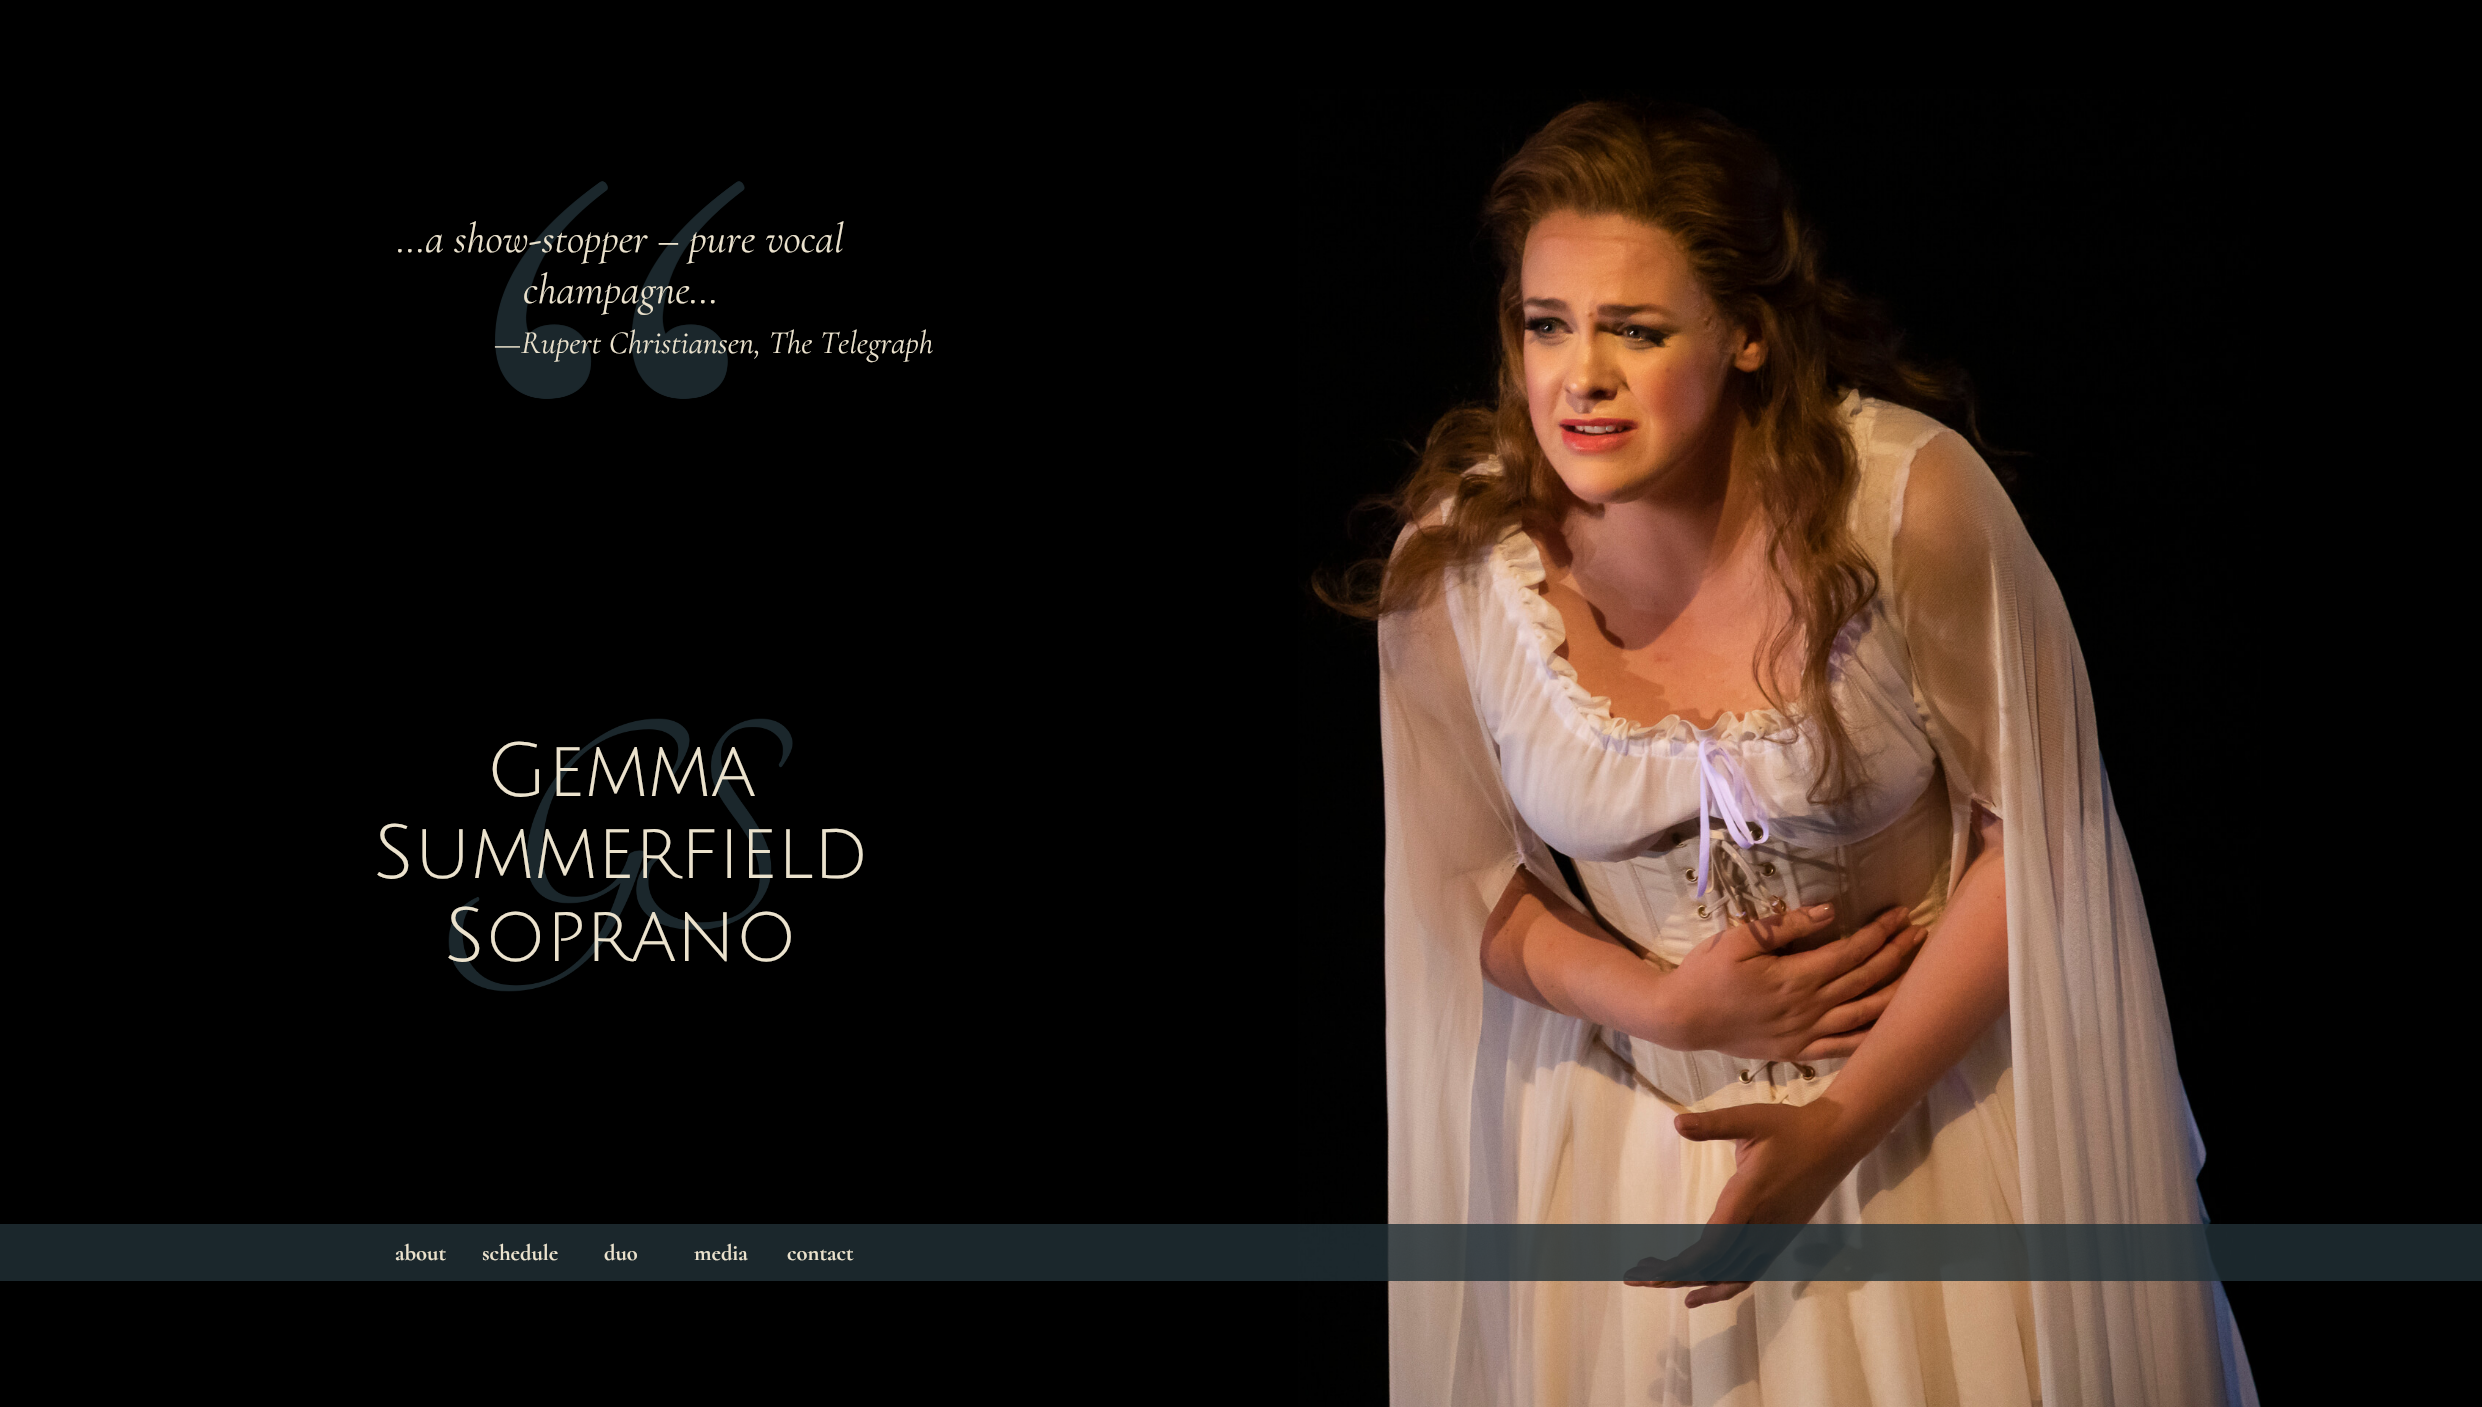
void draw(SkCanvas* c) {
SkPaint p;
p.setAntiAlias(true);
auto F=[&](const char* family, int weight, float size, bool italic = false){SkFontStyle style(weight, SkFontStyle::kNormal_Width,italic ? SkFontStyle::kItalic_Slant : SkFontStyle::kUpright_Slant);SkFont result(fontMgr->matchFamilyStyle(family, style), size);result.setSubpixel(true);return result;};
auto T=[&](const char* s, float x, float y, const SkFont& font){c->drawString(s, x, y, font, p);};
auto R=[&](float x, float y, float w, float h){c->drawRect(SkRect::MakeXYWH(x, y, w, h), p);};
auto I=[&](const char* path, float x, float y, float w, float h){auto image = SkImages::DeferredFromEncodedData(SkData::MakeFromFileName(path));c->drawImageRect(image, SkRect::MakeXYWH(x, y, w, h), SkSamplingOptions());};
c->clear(0xff000000);
I("1.png",495,181,250,218);
auto f1 = F("Cormorant",400,42.5,true);
p.setColor(0xffebe2cd);
T("…a show-stopper – pure vocal",397,252,f1);
T("champagne…",523,303,f1);
auto f2 = F("Cormorant",400,32.5,true);
T("—Rupert Christiansen, The Telegraph",494,353,f2);
I("2.png",448,718,345,274);
auto f3 = F("Julius Sans One",400,75);
T("Gemma",486,796,f3);
T("Summerfield",373,878,f3);
T("Soprano",444,961,f3);
I("3.png",1298,89,963,1318);
p.setColor(0xcc223137);
R(0,1224,2482,57);
auto f4 = F("Cormorant",700,22.5);
p.setColor(0xffebe2cd);
T("about",395,1260,f4);
T("schedule",482,1260,f4);
T("duo",604,1260,f4);
T("media",694,1260,f4);
T("contact",787,1260,f4);
}
